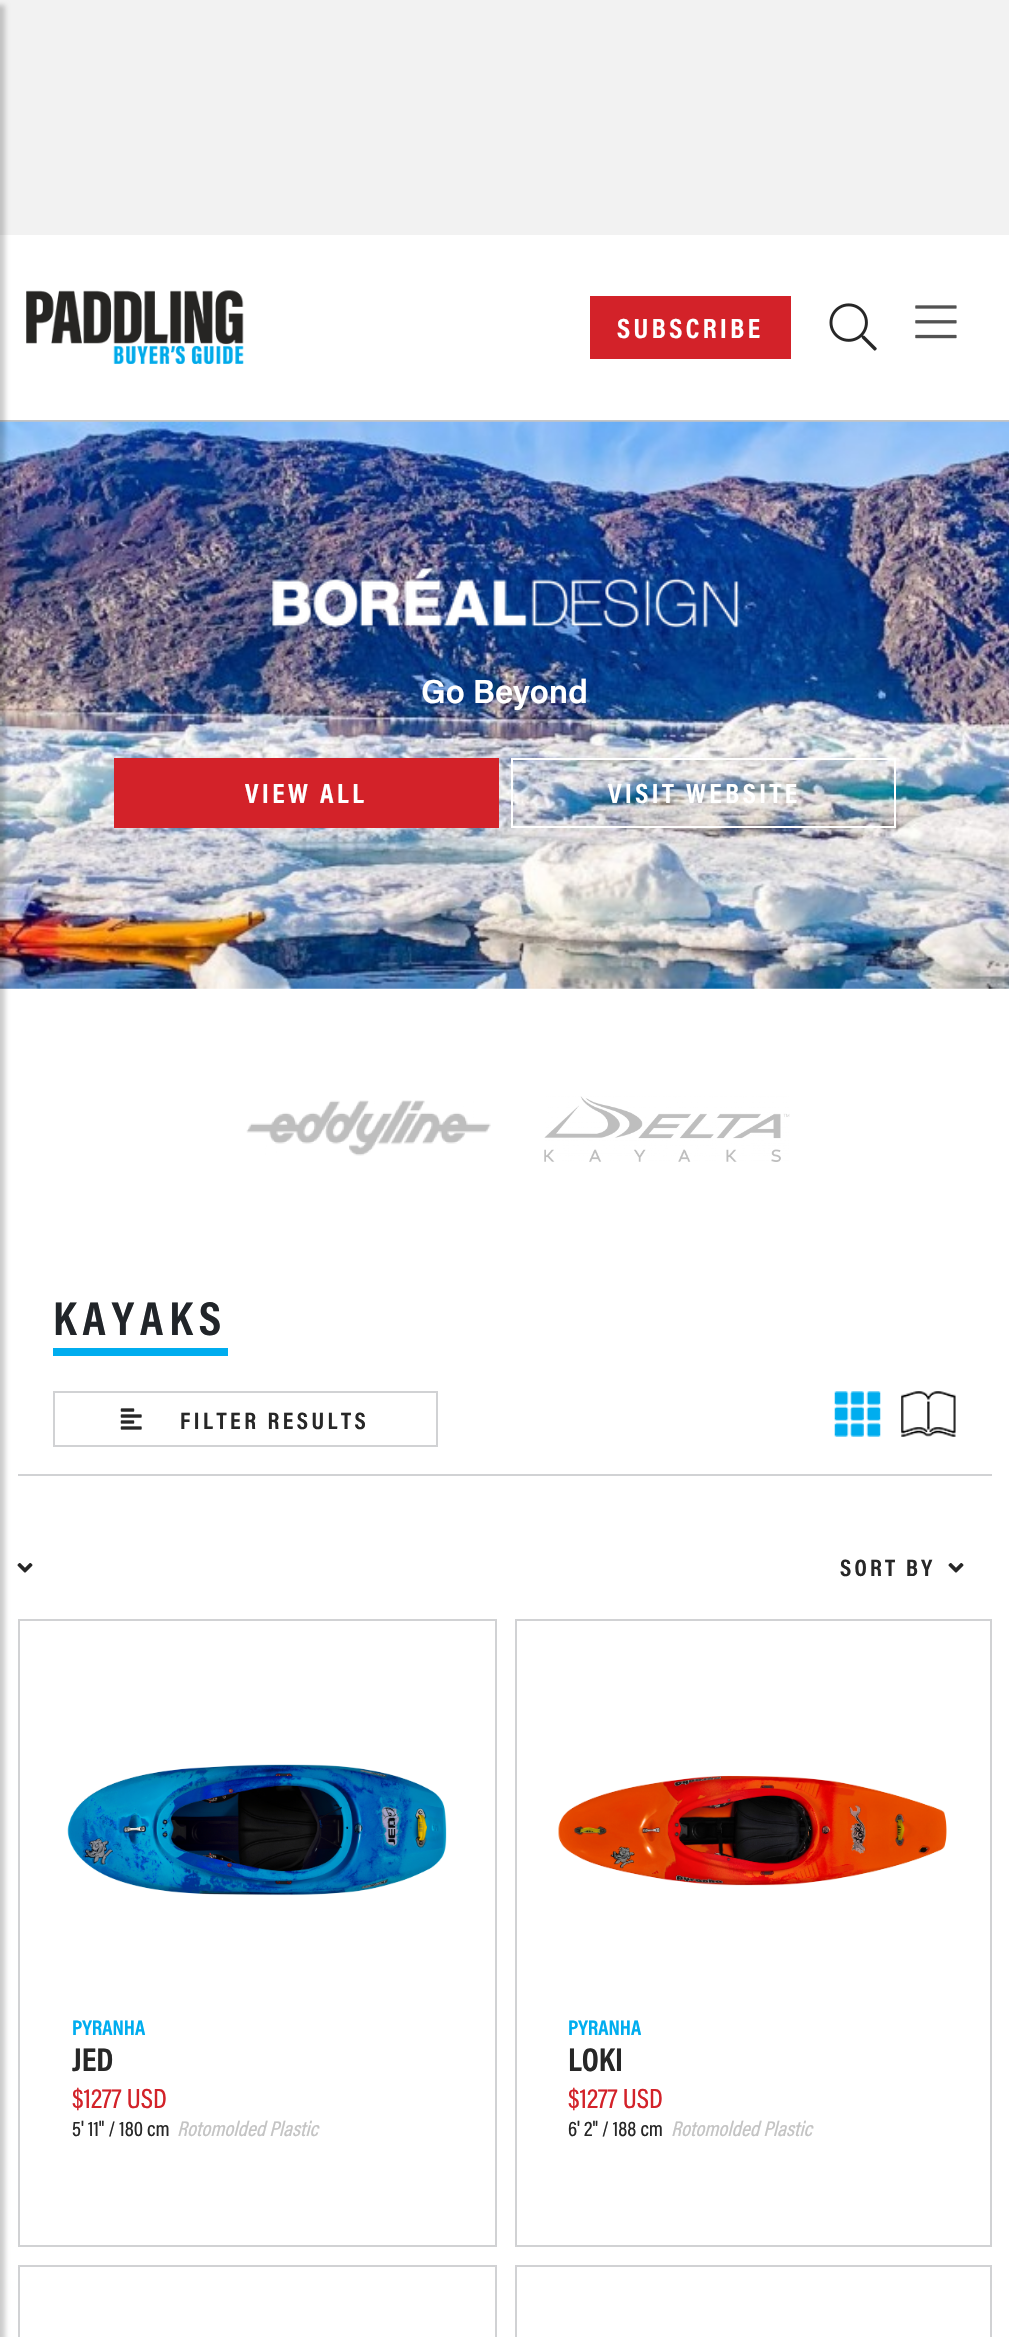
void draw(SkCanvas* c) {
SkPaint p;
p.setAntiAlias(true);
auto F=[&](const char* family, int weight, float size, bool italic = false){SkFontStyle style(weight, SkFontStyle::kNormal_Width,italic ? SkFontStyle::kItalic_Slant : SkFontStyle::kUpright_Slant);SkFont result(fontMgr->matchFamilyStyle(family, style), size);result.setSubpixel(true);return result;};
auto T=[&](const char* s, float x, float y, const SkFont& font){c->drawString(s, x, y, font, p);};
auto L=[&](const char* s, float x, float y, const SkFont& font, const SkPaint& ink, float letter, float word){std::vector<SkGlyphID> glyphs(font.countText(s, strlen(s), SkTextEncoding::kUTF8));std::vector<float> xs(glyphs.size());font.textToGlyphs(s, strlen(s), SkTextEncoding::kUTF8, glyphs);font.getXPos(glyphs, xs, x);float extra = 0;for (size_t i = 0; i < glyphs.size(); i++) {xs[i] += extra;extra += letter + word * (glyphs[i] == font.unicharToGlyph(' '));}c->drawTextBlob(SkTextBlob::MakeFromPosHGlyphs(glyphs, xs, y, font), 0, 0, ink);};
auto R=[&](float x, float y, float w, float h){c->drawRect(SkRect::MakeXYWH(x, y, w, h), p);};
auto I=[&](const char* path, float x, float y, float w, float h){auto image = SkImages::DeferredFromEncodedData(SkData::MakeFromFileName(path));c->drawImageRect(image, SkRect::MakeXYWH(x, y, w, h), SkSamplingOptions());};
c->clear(0xffffffff);
p.setColor(0xfff2f2f2);
R(0,0,1009,235);
p.setColor(0xffc4c4c4);
R(0,420,1009,2);
I("1.png",26,290,218,74);
p.setColor(0xffd32229);
R(590,296,201,63);
auto f1 = F("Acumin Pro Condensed",700,28);
p.setColor(0xffffffff);
L("SUBSCRIBE",617,338,f1,p,3.5,0);
I("2.png",829,303,48,48);
I("3.png",915,305,42,34);
I("4.png",0,421,1009,568);
I("5.png",272,567,468,61);
auto f2 = F("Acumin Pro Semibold",600,33.25);
T("Go Beyond",421,703,f2);
p.setColor(0xffd32229);
R(114,758,385,70);
p.setColor(0xffffffff);
L("VIEW ALL",245,803,f1,p,3.5,0);
p.setStroke(true);
p.setStrokeWidth(2);
c->drawRect(SkRect::MakeXYWH(512,759,383,68),p);
p.setStroke(false);
L("VISIT WEBSITE",608,803,f1,p,3.5,0);
I("6.png",246,1100,245,56);
I("7.png",544,1096,246,66);
p.setColor(0x33000000);
p.setMaskFilter(SkMaskFilter::MakeBlur(kNormal_SkBlurStyle, 2.5));
c->drawRect(SkRect::MakeXYWH(-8,5,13,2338),p);
p.setMaskFilter(nullptr);
p.setColor(0xffd1d2d4);
R(18,1474,974,2);
p.setColor(0xff00adef);
R(53,1348,175,8);
auto f3 = F("Acumin Pro Condensed",700,48);
p.setColor(0xff212529);
L("KAYAKS",53,1335,f3,p,6.25,0);
p.setStroke(true);
p.setColor(0xffd1d2d4);
c->drawRect(SkRect::MakeXYWH(54,1392,383,54),p);
I("8.png",120,1408,22,22);
auto f4 = F("Acumin Pro Condensed",700,24);
p.setStroke(false);
p.setColor(0xff272727);
L("FILTER RESULTS",180,1429,f4,p,3.5,0);
I("9.png",834,1391,47,46);
I("10.png",901,1391,55,46);
I("11.png",17,1563,16,10);
L("SORT BY",840,1576,f4,p,3.25,0);
I("11.png",948,1563,16,10);
p.setStroke(true);
p.setColor(0xffd1d2d4);
c->drawRect(SkRect::MakeXYWH(19,1620,477,626),p);
I("12.png",67,1764,380,132);
auto f5 = F("Acumin Pro Condensed",700,21.25);
p.setStroke(false);
p.setColor(0xff00adef);
T("PYRANHA",72,2035,f5);
auto f6 = F("Acumin Pro Condensed",700,33.25);
p.setColor(0xff272727);
T("JED",72,2071,f6);
auto f7 = F("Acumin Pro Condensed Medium",500,28);
p.setColor(0xffd32229);
T("$1277 USD",72,2108,f7);
auto f8 = F("Acumin Pro Condensed Medium",500,21.25);
p.setColor(0xff272727);
T("5' 11\" / 180 cm",72,2136,f8);
auto f9 = F("Acumin Pro Condensed Medium",500,21.25,true);
p.setColor(0xffc4c4c4);
T("Rotomolded Plastic",177,2136,f9);
p.setStroke(true);
p.setColor(0xffd1d2d4);
c->drawRect(SkRect::MakeXYWH(516,1620,475,626),p);
I("13.png",558,1775,389,111);
p.setStroke(false);
p.setColor(0xff00adef);
T("PYRANHA",568,2035,f5);
p.setColor(0xff272727);
T("LOKI",568,2071,f6);
p.setColor(0xffd32229);
T("$1277 USD",568,2108,f7);
p.setColor(0xff272727);
T("6' 2\" / 188 cm",568,2136,f8);
p.setColor(0xffc4c4c4);
T("Rotomolded Plastic",671,2136,f9);
p.setStroke(true);
p.setColor(0xffd1d2d4);
c->drawRect(SkRect::MakeXYWH(19,2266,477,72),p);
c->drawRect(SkRect::MakeXYWH(516,2266,475,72),p);
}
